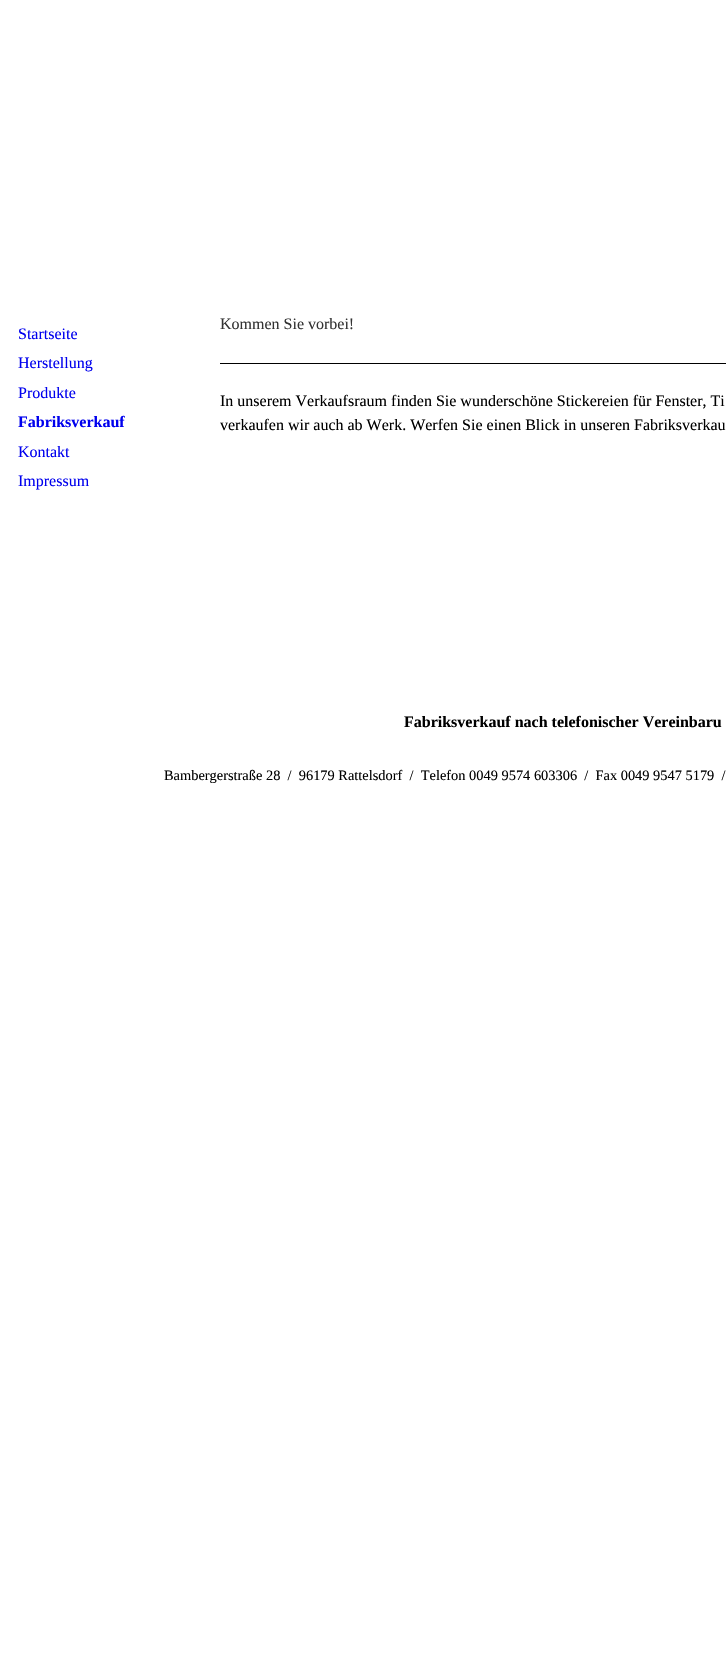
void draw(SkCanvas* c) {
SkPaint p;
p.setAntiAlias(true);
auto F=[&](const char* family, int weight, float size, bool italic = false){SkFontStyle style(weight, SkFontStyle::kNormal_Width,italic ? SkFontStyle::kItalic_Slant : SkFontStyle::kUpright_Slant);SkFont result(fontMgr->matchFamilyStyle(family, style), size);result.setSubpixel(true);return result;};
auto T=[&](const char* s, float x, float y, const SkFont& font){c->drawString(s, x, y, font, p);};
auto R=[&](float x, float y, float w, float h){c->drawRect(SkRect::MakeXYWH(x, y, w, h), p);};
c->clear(0xffffffff);
auto f1 = F("Liberation Serif",400,16);
p.setColor(0xff0000ee);
T("Startseite",18,339,f1);
T("Herstellung",18,368,f1);
T("Produkte",18,398,f1);
auto f2 = F("Liberation Serif",700,16);
T("Fabriksverkauf",18,427,f2);
T("Kontakt",18,457,f1);
T("Impressum",18,486,f1);
p.setColor(0xff333333);
T("Kommen Sie vorbei!",220,329,f1);
p.setColor(0xff000000);
R(220,363,506,1);
T("In unserem Verkaufsraum finden Sie wunderschöne Stickereien für Fenster, Ti",220,406,f1);
T("verkaufen wir auch ab Werk. Werfen Sie einen Blick in unseren Fabriksverkau",220,430,f1);
T("Fabriksverkauf nach telefonischer Vereinbaru",404,727,f2);
auto f3 = F("Liberation Serif",400,14.4);
T("Bambergerstraße 28  /  96179 Rattelsdorf  /  Telefon 0049 9574 603306  /  Fax 0049 9547 5179  /",164,780,f3);
}
